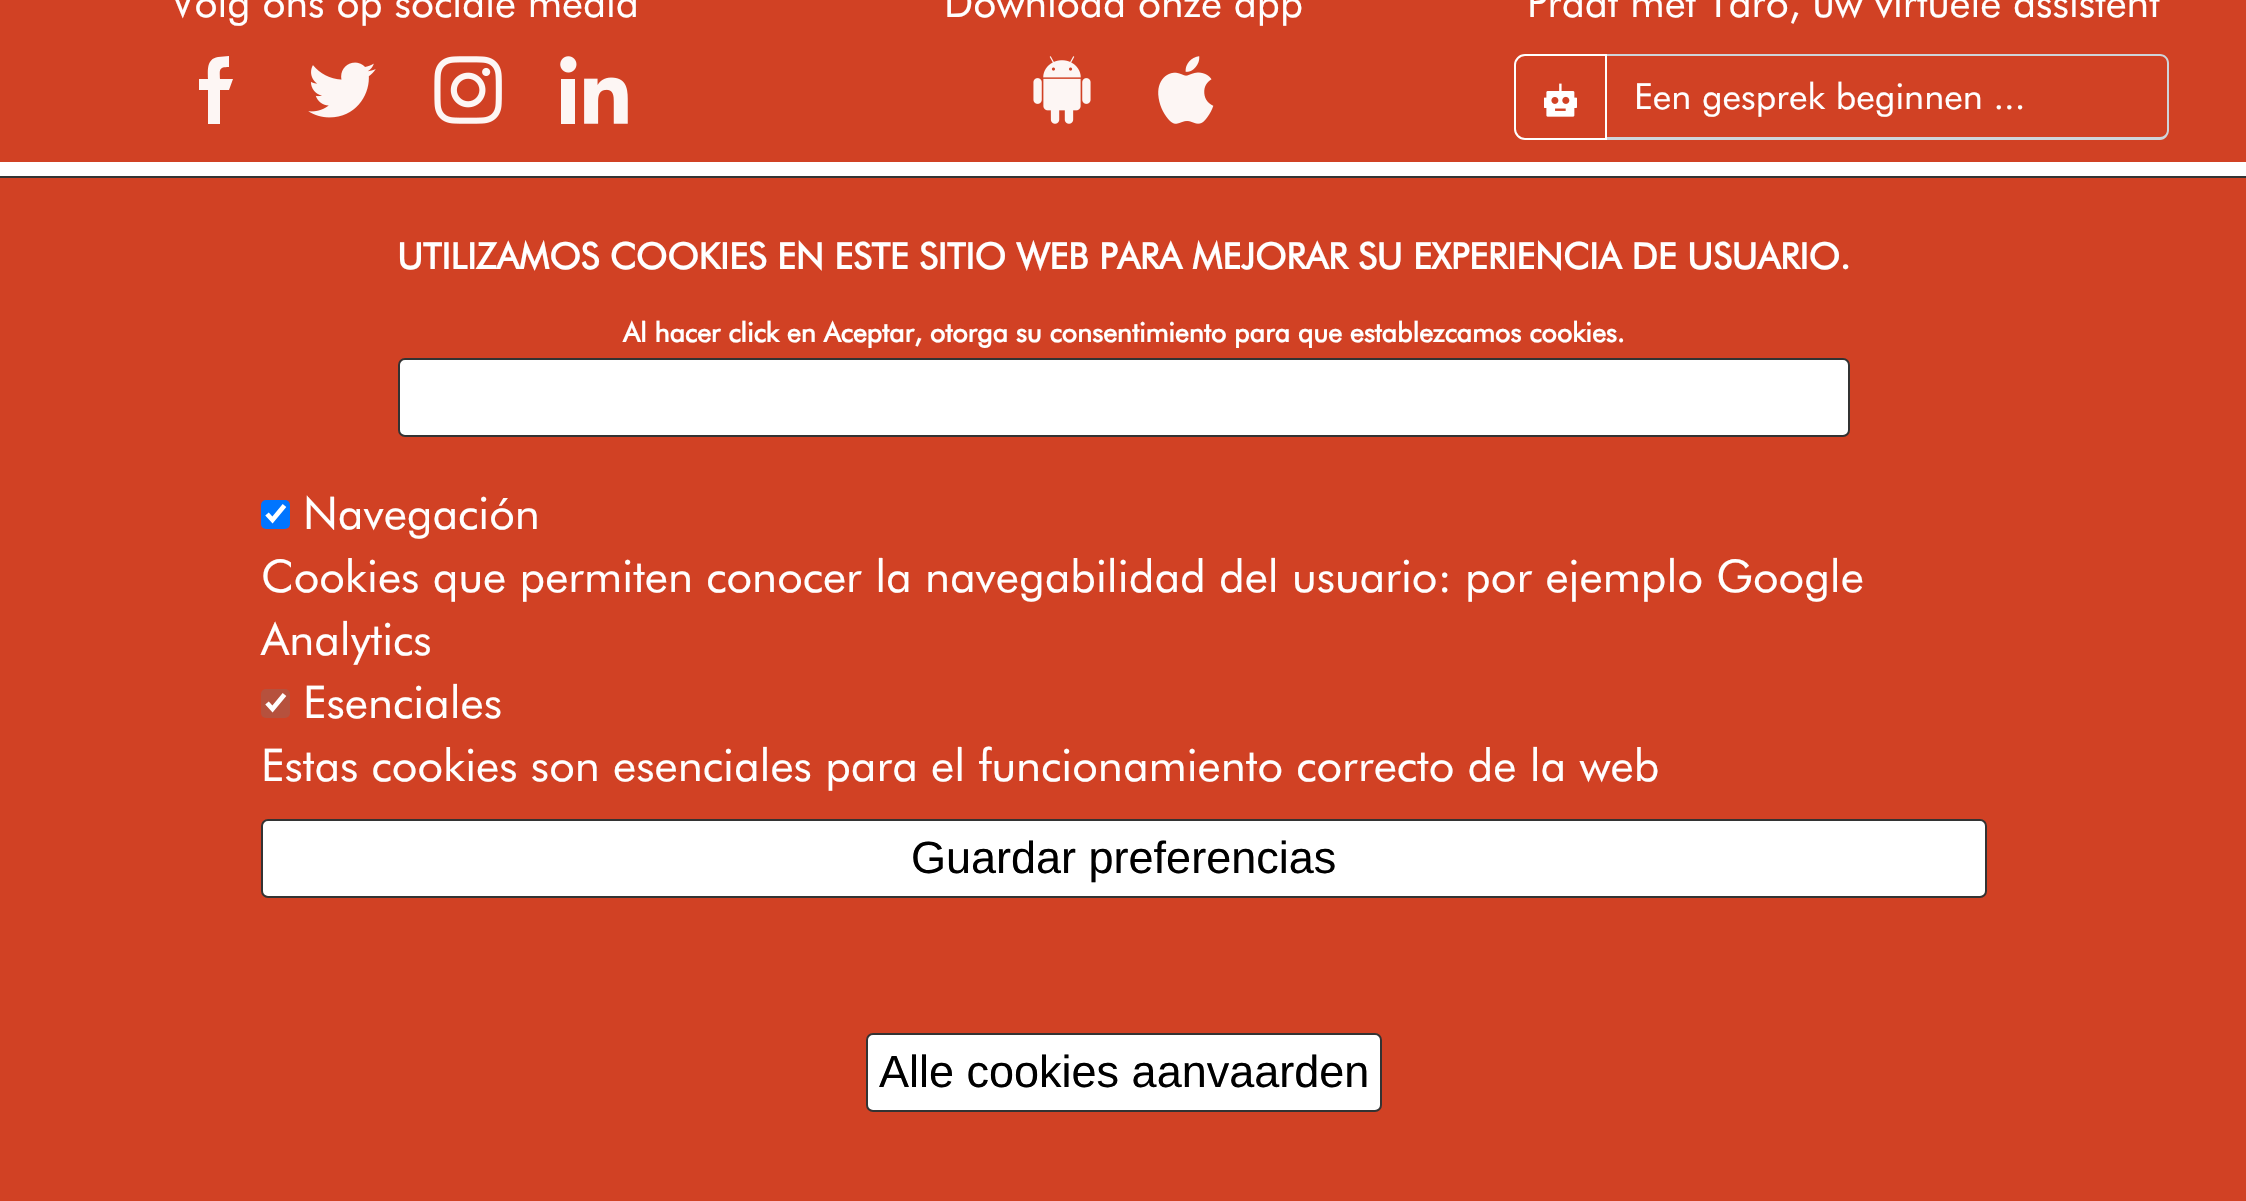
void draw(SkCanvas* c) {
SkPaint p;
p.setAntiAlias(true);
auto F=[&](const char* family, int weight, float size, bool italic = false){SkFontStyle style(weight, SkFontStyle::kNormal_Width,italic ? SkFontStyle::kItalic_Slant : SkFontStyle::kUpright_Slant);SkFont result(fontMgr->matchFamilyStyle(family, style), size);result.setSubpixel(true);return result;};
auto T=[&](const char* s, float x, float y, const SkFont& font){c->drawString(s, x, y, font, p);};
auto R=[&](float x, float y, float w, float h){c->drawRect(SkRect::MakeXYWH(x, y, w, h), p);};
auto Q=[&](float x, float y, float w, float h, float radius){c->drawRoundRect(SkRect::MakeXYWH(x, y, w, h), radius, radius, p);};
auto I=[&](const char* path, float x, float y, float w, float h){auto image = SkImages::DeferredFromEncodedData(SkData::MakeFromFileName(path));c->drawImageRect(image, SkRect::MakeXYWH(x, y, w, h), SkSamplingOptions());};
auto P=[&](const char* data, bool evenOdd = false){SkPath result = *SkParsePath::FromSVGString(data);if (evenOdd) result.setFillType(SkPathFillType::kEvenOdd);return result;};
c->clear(0xffd14124);
auto f1 = F("Futura",400,40.5);
p.setColor(0xffffffff);
T("Volg ons op sociale media",171,17,f1);
p.setColor(0xfffdf6f4);
c->drawPath(P("M220 79c0-9-2-12 9-12v-11l-11 1c-12 2-10 14-10 22h-9v11h9v34h12v-34h9l4-11z"),p);
I("1.png",308,62,68,56);
I("2.png",434,56,68,68);
I("3.png",560,56,68,68);
p.setColor(0xffffffff);
T("Download onze app",944,17,f1);
I("4.png",1033,56,58,68);
I("5.png",1158,56,56,68);
T("Praat met Taro, uw virtuele assistent",1527,17,f1);
p.setColor(0xffced4da);
c->drawPath(P("M1606 54h554c5 0 9 4 9 9v67c0 5-4 10-9 10h-554zm0 2h554c4 0 7 3 7 7v67c0 4-3 7-7 7h-554z",true),p);
p.setStroke(true);
p.setStrokeWidth(2);
p.setColor(0xffffffff);
c->drawPath(P("M1525 55h81v84h-81c-5.5 0-10-4.5-10-10v-64c0-5.5 4.5-10 10-10z"),p);
I("6.png",1544,83,33,34);
auto f2 = F("Futura",400,36);
p.setStroke(false);
T("Een gesprek beginnen ...",1634,109,f2);
R(0,162,2246,14);
p.setColor(0xff333333);
R(0,176,2246,2);
auto f3 = F("Futura",700,36);
p.setColor(0xffffffff);
T("UTILIZAMOS COOKIES EN ESTE SITIO WEB PARA MEJORAR SU EXPERIENCIA DE USUARIO.",397,269,f3);
auto f4 = F("Futura",700,27);
T("Al hacer click en Aceptar, otorga su consentimiento para que establezcamos cookies.",623,342,f4);
c->drawRoundRect(SkRect::MakeXYWH(399,359,1450,77),6,6,p);
p.setStroke(true);
p.setColor(0xff333333);
c->drawRoundRect(SkRect::MakeXYWH(399,359,1450,77),6,6,p);
p.setStroke(false);
p.setColor(0xff0075ff);
Q(261,500,29,29,5);
p.setStroke(true);
p.setStrokeWidth(4.7);
p.setColor(0xffffffff);
c->drawPath(P("M267 514l5.5 6l12-14.5"),p);
auto f5 = F("Futura",400,45);
p.setStroke(false);
T("Navegación",303,529,f5);
T("Cookies que permiten conocer la navegabilidad del usuario: por ejemplo Google",261,592,f5);
T("Analytics",261,655,f5);
p.setColor(0xffb6513d);
Q(261,689,29,29,5);
p.setStroke(true);
p.setColor(0xffffffff);
c->drawPath(P("M267 703l5.5 6l12-14.5"),p);
p.setStroke(false);
T("Esenciales",303,718,f5);
T("Estas cookies son esenciales para el funcionamiento correcto de la web",261,781,f5);
c->drawRoundRect(SkRect::MakeXYWH(262,820,1724,77),6,6,p);
p.setStroke(true);
p.setStrokeWidth(2);
p.setColor(0xff333333);
c->drawRoundRect(SkRect::MakeXYWH(262,820,1724,77),6,6,p);
auto f6 = F("Liberation Sans",400,45);
p.setStroke(false);
p.setColor(0xff000000);
T("Guardar preferencias",911,873,f6);
p.setColor(0xffffffff);
c->drawRoundRect(SkRect::MakeXYWH(867,1034,514,77),6,6,p);
p.setStroke(true);
p.setColor(0xff333333);
c->drawRoundRect(SkRect::MakeXYWH(867,1034,514,77),6,6,p);
p.setStroke(false);
p.setColor(0xff000000);
T("Alle cookies aanvaarden",879,1087,f6);
}
